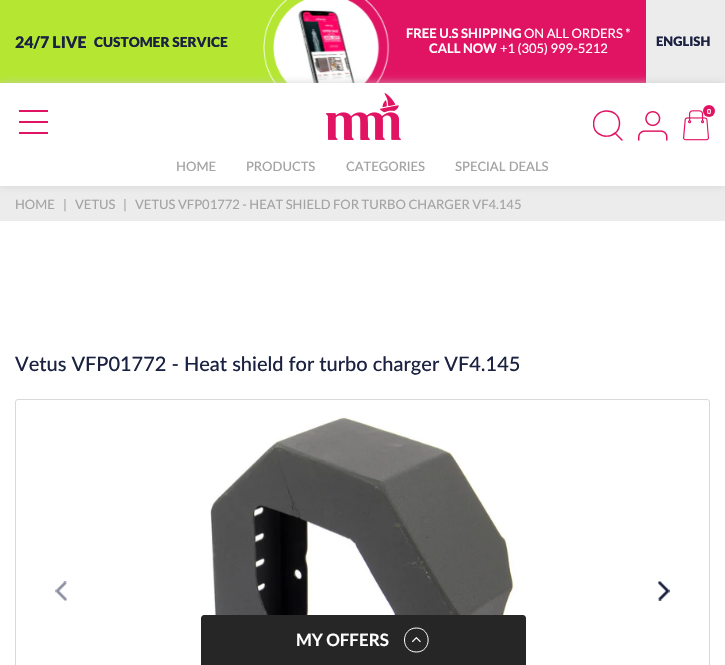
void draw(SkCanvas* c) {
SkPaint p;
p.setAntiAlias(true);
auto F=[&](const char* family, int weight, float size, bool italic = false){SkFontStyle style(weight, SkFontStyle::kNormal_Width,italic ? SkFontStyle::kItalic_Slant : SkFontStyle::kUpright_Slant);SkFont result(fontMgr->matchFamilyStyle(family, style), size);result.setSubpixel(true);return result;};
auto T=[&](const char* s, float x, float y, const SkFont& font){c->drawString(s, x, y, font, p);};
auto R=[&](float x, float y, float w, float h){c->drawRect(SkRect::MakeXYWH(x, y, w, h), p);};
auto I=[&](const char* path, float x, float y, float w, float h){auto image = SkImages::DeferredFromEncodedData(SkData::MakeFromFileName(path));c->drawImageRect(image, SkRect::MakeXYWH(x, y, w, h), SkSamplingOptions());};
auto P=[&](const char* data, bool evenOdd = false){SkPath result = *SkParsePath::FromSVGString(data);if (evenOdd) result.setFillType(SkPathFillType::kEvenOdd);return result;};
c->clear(0xffffffff);
p.setColor(0xffb4e632);
R(0,0,305,83);
auto f1 = F("Lato",900,16);
p.setColor(0xff1a2141);
T("24/7 LIVE",15,48,f1);
auto f2 = F("Lato",900,13.75);
T("CUSTOMER SERVICE",94,47,f2);
p.setColor(0xffe11464);
R(347,0,299,83);
I("1.png",263,0,127,83);
auto f3 = F("Lato",700,13);
p.setColor(0xffffffff);
T("FREE U.S SHIPPING",406,38,f3);
auto f4 = F("Lato",400,13);
T("ON ALL ORDERS *",524,38,f4);
T("CALL NOW",429,53,f3);
T("+1 (305) 999-5212",500,53,f4);
p.setColor(0xffedeced);
R(646,0,79,83);
auto f5 = F("Lato",900,13);
p.setColor(0xff1a2141);
T("ENGLISH",656,46,f5);
p.setColor(0xffedeced);
R(0,186,725,35);
c->save();
c->clipPath(P("M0 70h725v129h-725zm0 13h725v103h-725z",true),true);
p.setColor(0xbfc9c9c9);
p.setMaskFilter(SkMaskFilter::MakeBlur(kNormal_SkBlurStyle, 4));
c->drawRect(SkRect::MakeXYWH(0,83,725,103),p);
p.setMaskFilter(nullptr);
c->restore();
p.setColor(0xffe11464);
R(19,110,29,2);
R(19,121,29,2);
R(19,132,29,2);
I("2.png",326,93,75,47);
c->save();
c->clipRect(SkRect::MakeXYWH(593,110,30,31));
p.setStroke(true);
p.setStrokeWidth(1.5);
c->drawPath(P("M619.5 123.5c0-17-26-16.5-26 .5c.5 16.5 26 16 26-.5z"),p);
c->restore();
p.setStrokeCap(SkPaint::kRound_Cap);
c->drawPath(P("M615 133l7 7"),p);
I("3.png",638,111,30,30);
I("4.png",683,110,26,31);
p.setStroke(false);
c->drawCircle(709,111,6,p);
auto f6 = F("Lato",700,7);
p.setColor(0xffffffff);
T("0",707,114,f6);
auto f7 = F("Lato",500,13);
p.setColor(0xffa3a3a3);
T("HOME",176,171,f7);
T("PRODUCTS",246,171,f7);
T("CATEGORIES",346,171,f7);
T("SPECIAL DEALS",455,171,f7);
T("HOME",15,209,f4);
T("|",63,209,f4);
T("VETUS",75,209,f4);
T("|",123,209,f4);
T("VETUS VFP01772 - HEAT SHIELD FOR TURBO CHARGER VF4.145",135,209,f4);
auto f8 = F("Lato",500,20);
p.setColor(0xff1a2141);
T("Vetus VFP01772 - Heat shield for turbo charger VF4.145",15,371,f8);
p.setStroke(true);
p.setStrokeWidth(1);
p.setStrokeCap(SkPaint::kButt_Cap);
p.setColor(0xffd9d9d9);
c->drawRoundRect(SkRect::MakeXYWH(15.5,399.5,694,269),2.5,2.5,p);
I("5.png",210,414,308,201);
I("6.png",55,581,12,20);
I("7.png",658,581,12,20);
p.setStroke(false);
p.setColor(0xff262626);
c->drawPath(P("M204 615h319c1.5 0 3 1.5 3 3v47h-325v-47c0-1.5 1.5-3 3-3z"),p);
auto f9 = F("Lato",700,17);
p.setColor(0xffffffff);
T("MY OFFERS",296,646,f9);
p.setStroke(true);
c->drawPath(P("M416.5 652c-16 0-16-24 0-24c15.5 0 15.5 24 0 24z"),p);
I("8.png",412,637,9,6);
}
